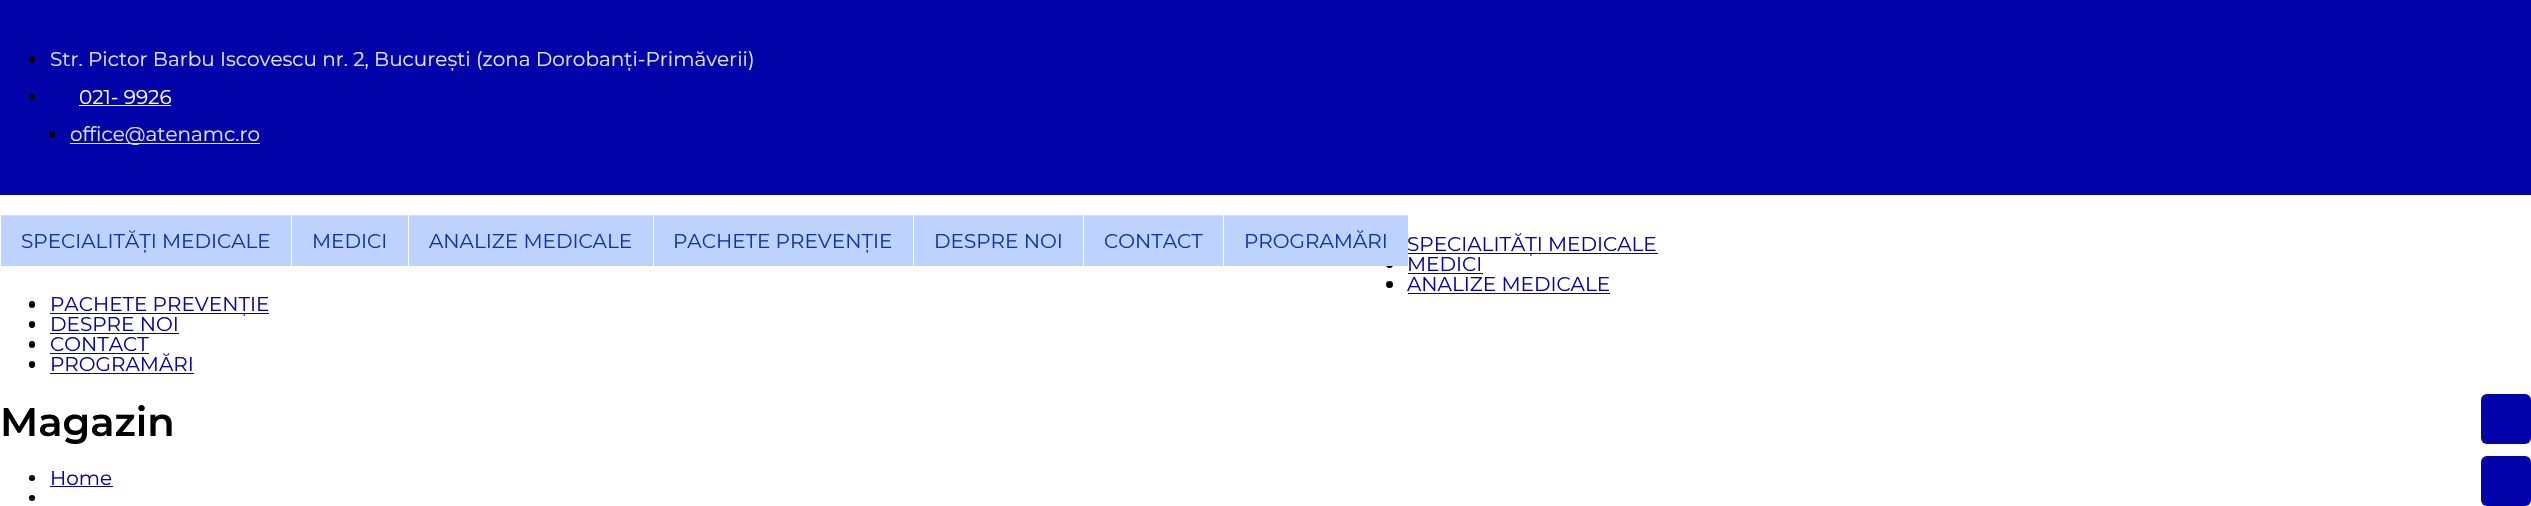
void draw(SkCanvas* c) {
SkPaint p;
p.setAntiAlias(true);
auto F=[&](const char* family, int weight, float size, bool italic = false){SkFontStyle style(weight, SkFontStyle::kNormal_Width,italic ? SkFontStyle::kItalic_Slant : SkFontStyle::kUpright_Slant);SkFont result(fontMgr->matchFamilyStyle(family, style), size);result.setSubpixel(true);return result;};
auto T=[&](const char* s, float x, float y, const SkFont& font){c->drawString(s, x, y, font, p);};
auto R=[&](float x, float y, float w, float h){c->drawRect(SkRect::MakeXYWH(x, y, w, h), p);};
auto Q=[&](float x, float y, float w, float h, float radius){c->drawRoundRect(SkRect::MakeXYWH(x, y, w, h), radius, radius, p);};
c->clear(0xffffffff);
p.setColor(0xff0204aa);
R(0,0,2531,195);
p.setColor(0xff000000);
Q(29,56,6,7,3);
auto f1 = F("Montserrat",100,20);
p.setColor(0xffe3e3e3);
T("Str. Pictor Barbu Iscovescu nr. 2, București (zona Dorobanți-Primăverii)",50,66,f1);
p.setColor(0xff000000);
c->drawCircle(32,97,3,p);
p.setColor(0xffffffff);
T("021- 9926",79,104,f1);
R(79,105,92,1);
p.setColor(0xff000000);
Q(49,131,6,7,3);
p.setColor(0xffe3e3e3);
R(70,143,190,1);
T("office@atenamc.ro",70,141,f1);
p.setColor(0xffbdd2ff);
R(1,216,290,50);
p.setColor(0xffcfdeff);
R(0,215,1408,1);
p.setColor(0xffffffff);
R(0,215,1,1);
p.setColor(0xff1133aa);
T("SPECIALITĂȚI MEDICALE",21,248,f1);
p.setColor(0xffbdd2ff);
R(292,216,116,50);
p.setColor(0xffffffff);
R(291,215,1,1);
p.setColor(0xff1133aa);
T("MEDICI",312,248,f1);
p.setColor(0xffbdd2ff);
R(409,216,244,50);
p.setColor(0xffffffff);
R(408,215,1,1);
p.setColor(0xff1133aa);
T("ANALIZE MEDICALE",429,248,f1);
p.setColor(0xffbdd2ff);
R(654,216,259,50);
p.setColor(0xffffffff);
R(653,215,1,1);
p.setColor(0xff1133aa);
T("PACHETE PREVENȚIE",673,248,f1);
p.setColor(0xffbdd2ff);
R(914,216,169,50);
p.setColor(0xffffffff);
R(913,215,1,1);
p.setColor(0xff1133aa);
T("DESPRE NOI",934,248,f1);
p.setColor(0xffbdd2ff);
R(1084,216,139,50);
p.setColor(0xffffffff);
R(1083,215,1,1);
p.setColor(0xff1133aa);
T("CONTACT",1104,248,f1);
p.setColor(0xff000000);
c->drawCircle(1389.5,264.5,3.5,p);
p.setColor(0xffbdd2ff);
R(1224,216,184,50);
p.setColor(0xffffffff);
R(1223,215,1,1);
p.setColor(0xff1133aa);
T("PROGRAMĂRI",1244,248,f1);
p.setColor(0xff0204aa);
R(1408,253,250,1);
T("SPECIALITĂȚI MEDICALE",1407,251,f1);
T("MEDICI",1407,271,f1);
R(1408,273,75,1);
p.setColor(0xff000000);
c->drawCircle(1389.5,284.5,3.5,p);
p.setColor(0xff0204aa);
T("ANALIZE MEDICALE",1407,291,f1);
R(1408,293,202,1);
p.setColor(0xff000000);
Q(29,301,6,7,3);
p.setColor(0xff0204aa);
R(50,313,219,1);
T("PACHETE PREVENȚIE",50,311,f1);
p.setColor(0xff000000);
Q(29,321,6,7,3);
p.setColor(0xff0204aa);
T("DESPRE NOI",50,331,f1);
R(50,333,129,1);
p.setColor(0xff000000);
Q(29,341,6,7,3);
p.setColor(0xff0204aa);
T("CONTACT",50,351,f1);
R(50,353,99,1);
p.setColor(0xff000000);
Q(29,361,6,7,3);
p.setColor(0xff0204aa);
T("PROGRAMĂRI",50,371,f1);
R(50,373,144,1);
auto f2 = F("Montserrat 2",100,40);
p.setColor(0xff000000);
T("Magazin",0,436,f2);
c->drawCircle(32,478,3,p);
p.setColor(0xff0204aa);
T("Home",50,485,f1);
R(50,486,63,1);
p.setColor(0xff000000);
c->drawCircle(32,498,3,p);
p.setColor(0xff0204aa);
Q(2481,394,50,50,6);
Q(2481,456,50,50,6);
}
